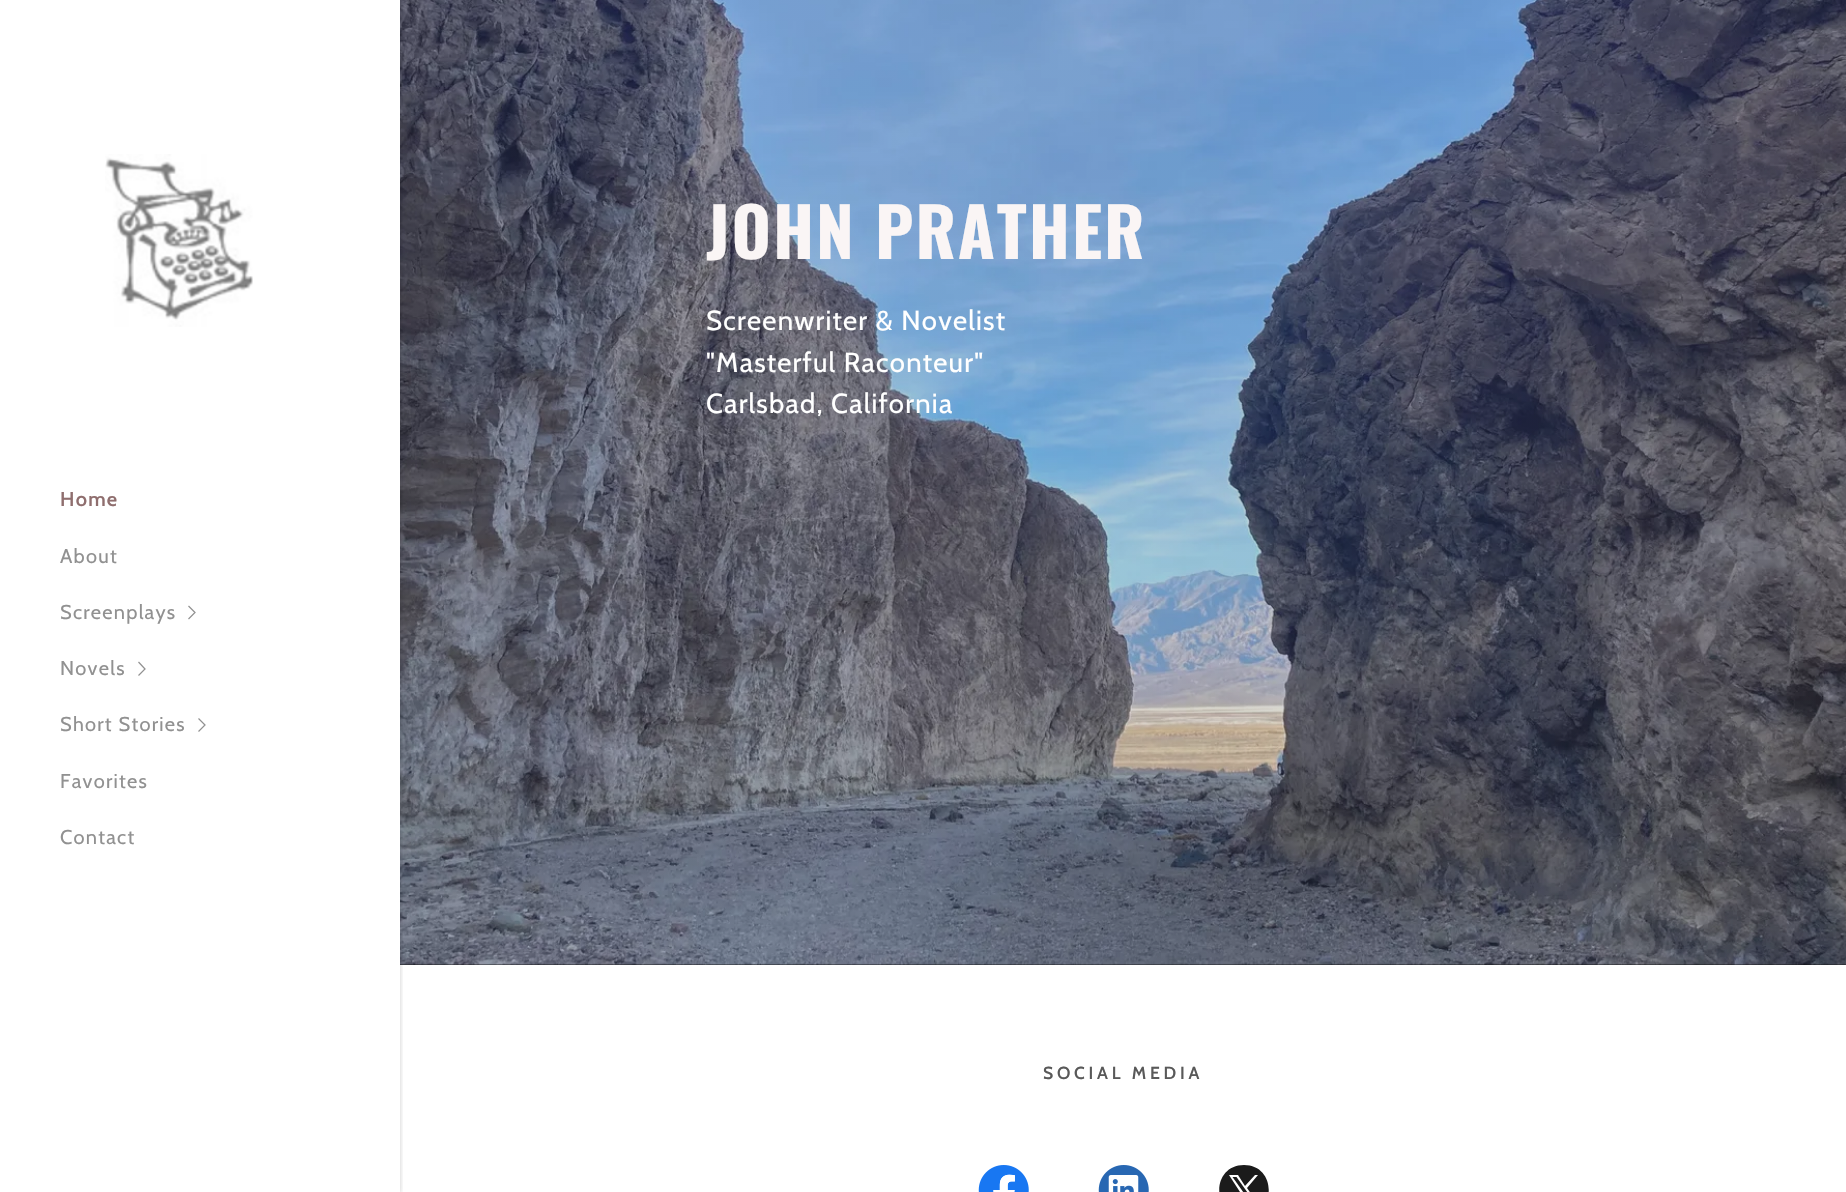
void draw(SkCanvas* c) {
SkPaint p;
p.setAntiAlias(true);
auto F=[&](const char* family, int weight, float size, bool italic = false){SkFontStyle style(weight, SkFontStyle::kNormal_Width,italic ? SkFontStyle::kItalic_Slant : SkFontStyle::kUpright_Slant);SkFont result(fontMgr->matchFamilyStyle(family, style), size);result.setSubpixel(true);return result;};
auto L=[&](const char* s, float x, float y, const SkFont& font, const SkPaint& ink, float letter, float word){std::vector<SkGlyphID> glyphs(font.countText(s, strlen(s), SkTextEncoding::kUTF8));std::vector<float> xs(glyphs.size());font.textToGlyphs(s, strlen(s), SkTextEncoding::kUTF8, glyphs);font.getXPos(glyphs, xs, x);float extra = 0;for (size_t i = 0; i < glyphs.size(); i++) {xs[i] += extra;extra += letter + word * (glyphs[i] == font.unicharToGlyph(' '));}c->drawTextBlob(SkTextBlob::MakeFromPosHGlyphs(glyphs, xs, y, font), 0, 0, ink);};
auto R=[&](float x, float y, float w, float h){c->drawRect(SkRect::MakeXYWH(x, y, w, h), p);};
auto I=[&](const char* path, float x, float y, float w, float h){auto image = SkImages::DeferredFromEncodedData(SkData::MakeFromFileName(path));c->drawImageRect(image, SkRect::MakeXYWH(x, y, w, h), SkSamplingOptions());};
auto P=[&](const char* data, bool evenOdd = false){SkPath result = *SkParsePath::FromSVGString(data);if (evenOdd) result.setFillType(SkPathFillType::kEvenOdd);return result;};
c->clear(0xffffffff);
p.setColor(0xff161616);
R(400,964,1446,1);
I("1.png",400,0,1446,965);
auto f1 = F("Oswald",700,67.5);
p.setColor(0xfffaf5f5);
L("JOHN PRATHER",706,259,f1,p,1.9,0);
auto f2 = F("Cabin",400,27.5);
p.setColor(0xffffffff);
L("Screenwriter & Novelist",706,330,f2,p,1.25,0);
L("\"Masterful Raconteur\"",706,372,f2,p,1.25,0);
L("Carlsbad, California",706,413,f2,p,1.25,0);
c->save();
c->clipRect(SkRect::MakeXYWH(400,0,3,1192));
p.setColor(0x33000000);
p.setMaskFilter(SkMaskFilter::MakeBlur(kNormal_SkBlurStyle, 2.5));
c->drawRect(SkRect::MakeXYWH(0,0,400,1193),p);
p.setMaskFilter(nullptr);
c->restore();
I("2.png",105,154,148,173);
auto f3 = F("Cabin",600,20);
p.setColor(0xff8f6e6e);
L("Home",60,506,f3,p,1.25,0);
auto f4 = F("Cabin",400,20);
p.setColor(0xff919191);
L("About",60,563,f4,p,1.25,0);
L("Screenplays",60,619,f4,p,1.25,0);
p.setStroke(true);
p.setStrokeWidth(1.2);
p.setStrokeCap(SkPaint::kSquare_Cap);
c->drawPath(P("M195 612.5v.5zm0 0l-6.5-6.5l6.5 6.5l-6.5 6.5z"),p);
p.setStroke(false);
L("Novels",60,675,f4,p,1.25,0);
p.setStroke(true);
c->drawPath(P("M145 669h0zm0 0l-6.5-7l6.5 7l-6.5 6.5z"),p);
p.setStroke(false);
L("Short Stories",60,731,f4,p,1.25,0);
p.setStroke(true);
c->drawPath(P("M205 725v.5zm0 0l-6.5-6.5l6.5 6.5l-6.5 6.5z"),p);
p.setStroke(false);
L("Favorites",60,788,f4,p,1.25,0);
L("Contact",60,844,f4,p,1.25,0);
auto f5 = F("Cabin",600,17.5);
p.setColor(0xff595959);
L("SOCIAL MEDIA",1043,1079,f5,p,3.75,0);
I("3.png",978,1165,51,27);
I("4.png",1098,1165,51,27);
p.setColor(0xff1b1b1b);
c->drawPath(P("M1251 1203l-18.5-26h4l18.5 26z"),p);
c->drawPath(P("M1244 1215c33 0 33-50 0-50c-33 0-33 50 0 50zm-4-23l-11-17h9l7 11l10-11h3l-11 13l12 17h-9l-8-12l-11 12h-2z",true),p);
}
